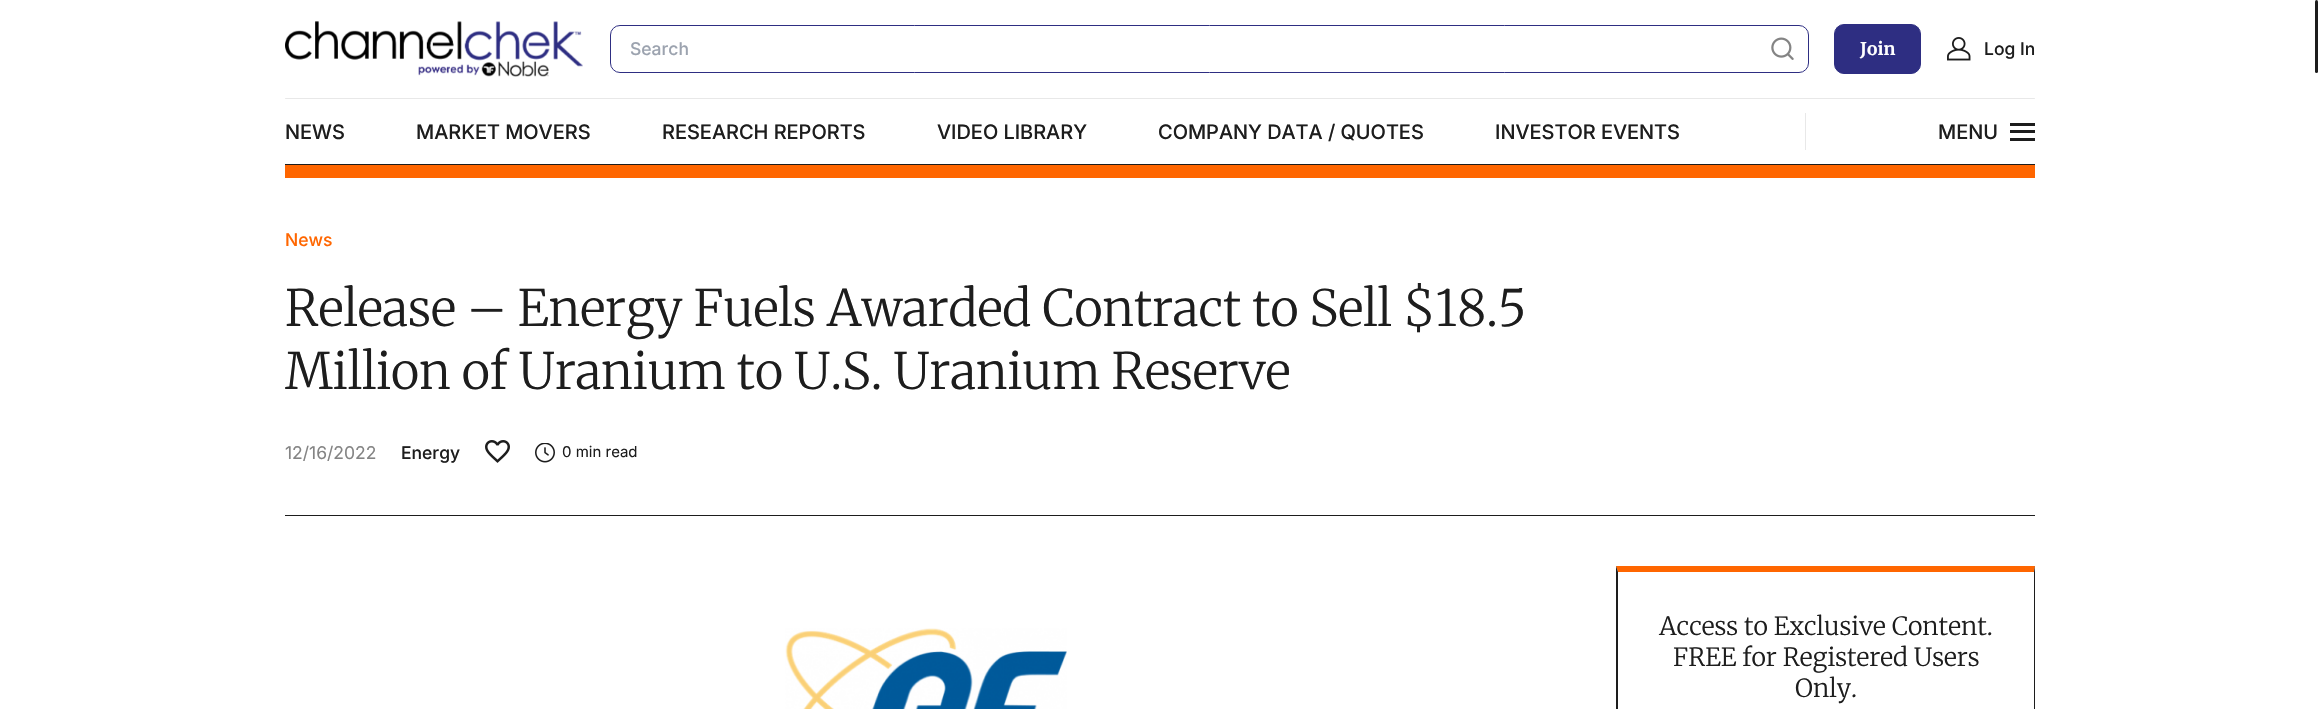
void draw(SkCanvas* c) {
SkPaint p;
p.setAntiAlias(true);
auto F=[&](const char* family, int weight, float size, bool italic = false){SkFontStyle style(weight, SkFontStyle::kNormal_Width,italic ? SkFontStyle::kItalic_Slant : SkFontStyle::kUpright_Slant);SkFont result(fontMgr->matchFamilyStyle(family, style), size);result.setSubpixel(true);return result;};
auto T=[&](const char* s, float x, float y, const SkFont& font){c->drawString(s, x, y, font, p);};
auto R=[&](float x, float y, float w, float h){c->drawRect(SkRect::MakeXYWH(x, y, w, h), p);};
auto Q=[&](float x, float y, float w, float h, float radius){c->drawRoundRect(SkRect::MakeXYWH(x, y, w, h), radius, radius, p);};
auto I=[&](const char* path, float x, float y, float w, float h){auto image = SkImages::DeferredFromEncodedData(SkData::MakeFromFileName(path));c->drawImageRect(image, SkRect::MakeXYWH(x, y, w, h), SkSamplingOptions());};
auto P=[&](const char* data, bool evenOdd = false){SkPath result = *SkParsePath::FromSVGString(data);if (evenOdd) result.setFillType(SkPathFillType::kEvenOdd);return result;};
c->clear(0xffffffff);
I("1.png",285,21,298,56);
p.setStroke(true);
p.setStrokeWidth(1);
p.setColor(0xff2e2e82);
c->drawRoundRect(SkRect::MakeXYWH(610.5,25.5,1198,47),9.5,9.5,p);
auto f1 = F("Inter",500,17.5);
p.setStroke(false);
p.setColor(0xff9ca3af);
T("Search",630,55,f1);
I("2.png",1771,37,23,23);
p.setColor(0xffe8e8e8);
R(285,98,1750,1);
p.setColor(0xffffffff);
c->drawPath(P("M2035 97.5v7.5l-1-1z"),p);
c->drawPath(P("M285 105v-7.5l1 6.5z"),p);
p.setColor(0xff2e2e82);
c->drawRoundRect(SkRect::MakeXYWH(1834.5,24.5,86,49),9.5,9.5,p);
p.setStroke(true);
c->drawRoundRect(SkRect::MakeXYWH(1834.5,24.5,86,49),9.5,9.5,p);
auto f2 = F("Merriweather",700,17.5);
p.setStroke(false);
p.setColor(0xffffffff);
T("Join",1860,55,f2);
I("3.png",1947,37,24,24);
p.setColor(0xff1d1d1d);
T("Log In",1984,55,f1);
R(285,164,1750,1);
auto f3 = F("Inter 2",500,20);
T("NEWS",285,139,f3);
T("MARKET MOVERS",416,139,f3);
T("RESEARCH REPORTS",662,139,f3);
T("VIDEO LIBRARY",937,139,f3);
T("COMPANY DATA / QUOTES",1158,139,f3);
T("INVESTOR EVENTS",1495,139,f3);
p.setColor(0xffe8e8e8);
R(1805,113,1,37);
p.setColor(0xff1d1d1d);
T("MENU",1938,139,f3);
R(2010,123,25,3);
R(2010,130,25,3);
R(2010,138,25,3);
Q(2315,0,3,73,1.5);
R(285,515,1750,1);
p.setColor(0xffff6600);
R(285,165,1750,13);
T("News",285,246,f1);
auto f4 = F("Merriweather",300,50);
p.setColor(0xff1d1d1d);
T("Release – Energy Fuels Awarded Contract to Sell $18.5",285,326,f4);
T("Million of Uranium to U.S. Uranium Reserve",285,389,f4);
auto f5 = F("Inter",400,17.5);
p.setColor(0xff848484);
T("12/16/2022",285,459,f5);
p.setColor(0xff1d1d1d);
T("Energy",401,459,f1);
I("4.png",485,440,25,23);
I("5.png",535,443,20,20);
auto f6 = F("Inter",400,15);
T("0 min read",562,457,f6);
I("6.png",785,628,282,81);
p.setColor(0xffff6600);
c->drawPath(P("M1616 566h419l-1 6h-416z"),p);
p.setColor(0xff1d1d1d);
c->drawPath(P("M2035 566v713l-1-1v-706z"),p);
c->drawPath(P("M1616 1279v-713l2 6v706z"),p);
auto f7 = F("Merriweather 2",300,25);
T("Access to Exclusive Content.",1659,635,f7);
T("FREE for Registered Users",1673,666,f7);
T("Only.",1795,697,f7);
}
